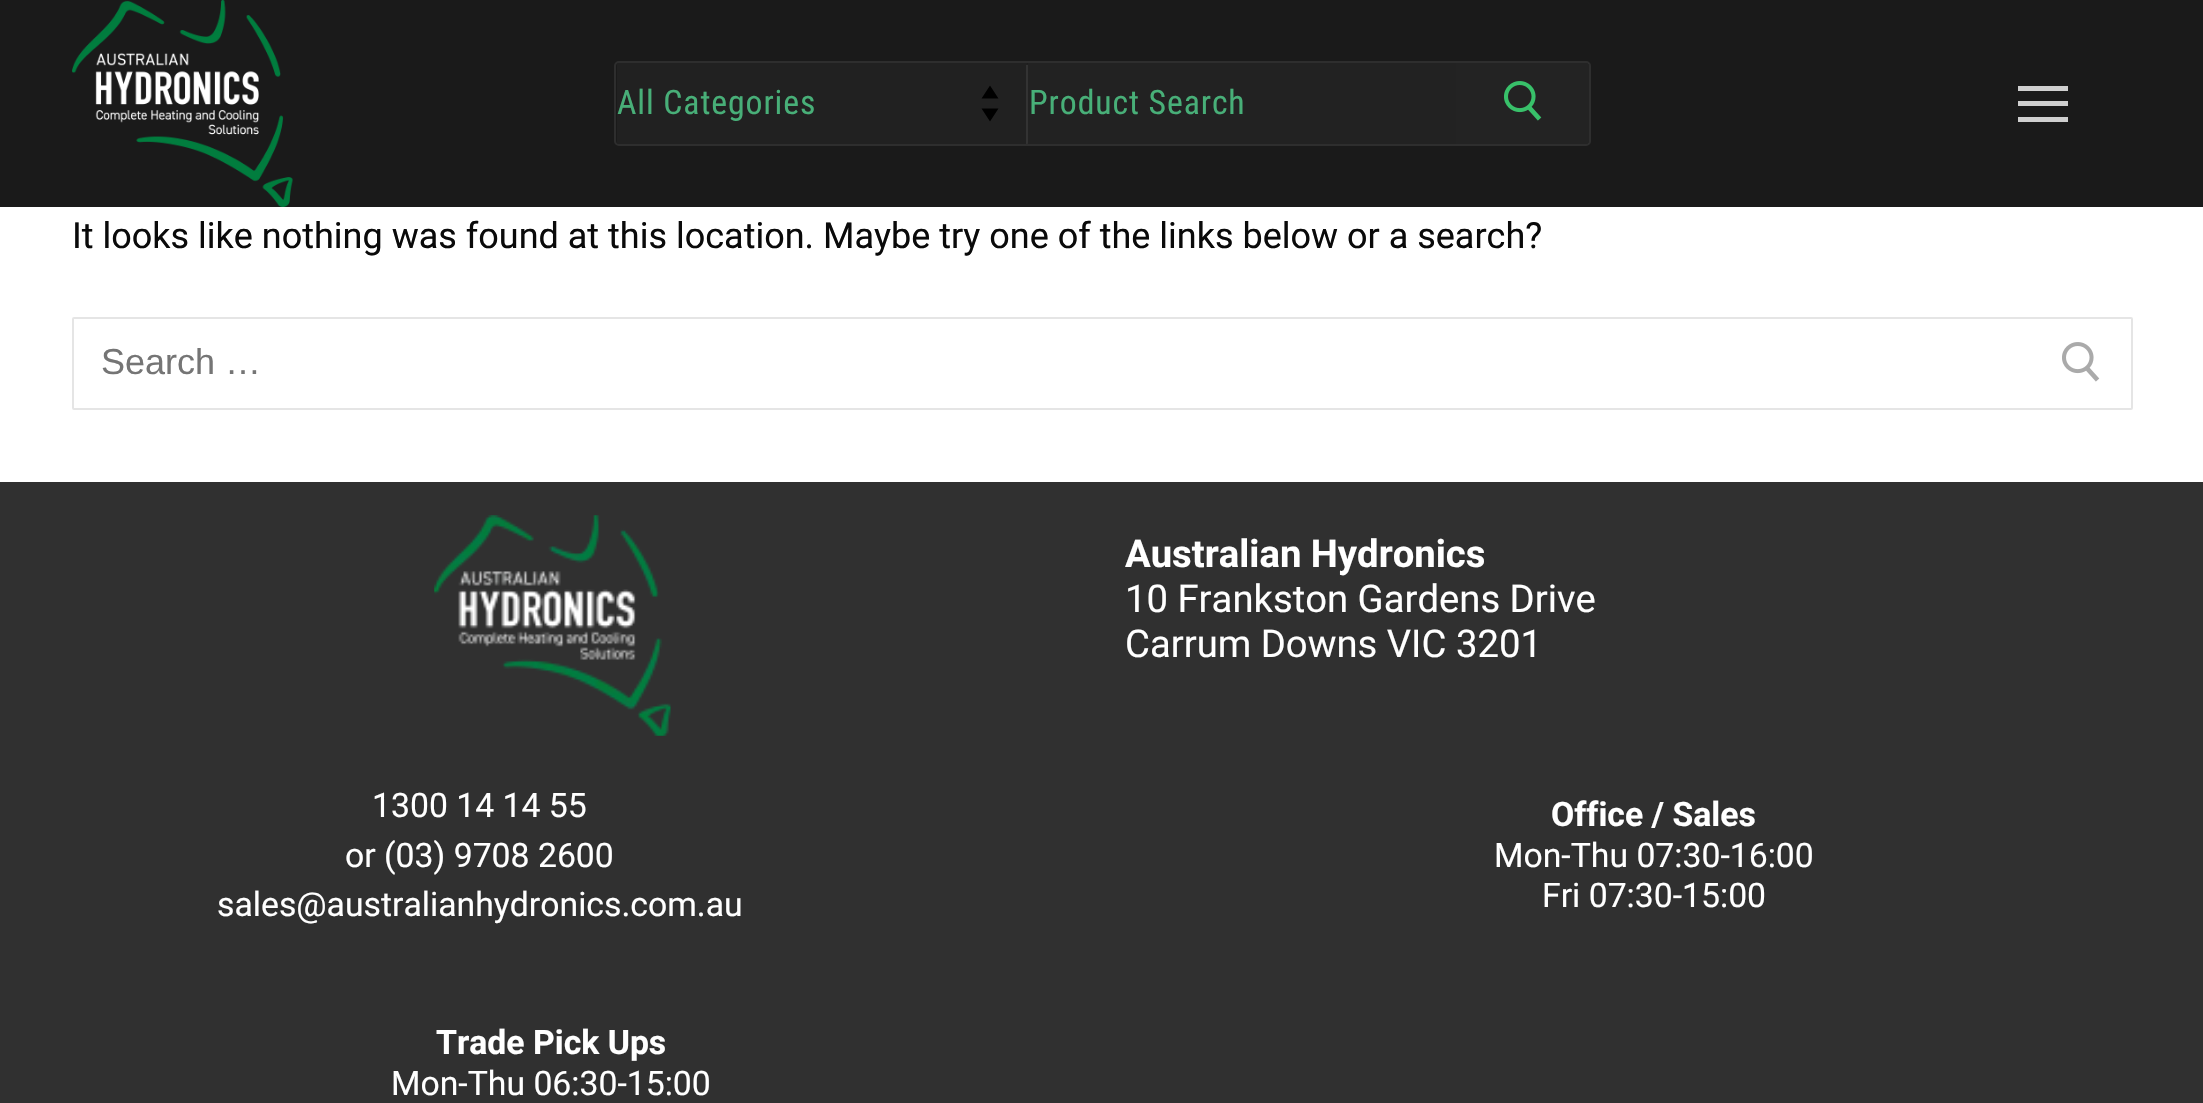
void draw(SkCanvas* c) {
SkPaint p;
p.setAntiAlias(true);
auto F=[&](const char* family, int weight, float size, bool italic = false){SkFontStyle style(weight, SkFontStyle::kNormal_Width,italic ? SkFontStyle::kItalic_Slant : SkFontStyle::kUpright_Slant);SkFont result(fontMgr->matchFamilyStyle(family, style), size);result.setSubpixel(true);return result;};
auto T=[&](const char* s, float x, float y, const SkFont& font){c->drawString(s, x, y, font, p);};
auto L=[&](const char* s, float x, float y, const SkFont& font, const SkPaint& ink, float letter, float word){std::vector<SkGlyphID> glyphs(font.countText(s, strlen(s), SkTextEncoding::kUTF8));std::vector<float> xs(glyphs.size());font.textToGlyphs(s, strlen(s), SkTextEncoding::kUTF8, glyphs);font.getXPos(glyphs, xs, x);float extra = 0;for (size_t i = 0; i < glyphs.size(); i++) {xs[i] += extra;extra += letter + word * (glyphs[i] == font.unicharToGlyph(' '));}c->drawTextBlob(SkTextBlob::MakeFromPosHGlyphs(glyphs, xs, y, font), 0, 0, ink);};
auto R=[&](float x, float y, float w, float h){c->drawRect(SkRect::MakeXYWH(x, y, w, h), p);};
auto Q=[&](float x, float y, float w, float h, float radius){c->drawRoundRect(SkRect::MakeXYWH(x, y, w, h), radius, radius, p);};
auto I=[&](const char* path, float x, float y, float w, float h){auto image = SkImages::DeferredFromEncodedData(SkData::MakeFromFileName(path));c->drawImageRect(image, SkRect::MakeXYWH(x, y, w, h), SkSamplingOptions());};
auto P=[&](const char* data, bool evenOdd = false){SkPath result = *SkParsePath::FromSVGString(data);if (evenOdd) result.setFillType(SkPathFillType::kEvenOdd);return result;};
c->clear(0xffffffff);
p.setColor(0xff1a1a1a);
R(0,0,2203,207);
I("1.png",72,0,221,207);
p.setStroke(true);
p.setStrokeWidth(2);
p.setColor(0xff2e2e2e);
c->drawRoundRect(SkRect::MakeXYWH(615,62,975,83),4,4,p);
p.setStroke(false);
p.setColor(0xff212121);
Q(617,63,411,81,2);
p.setColor(0xff000000);
c->drawPath(P("M990 85.5l-8.5 13h17zm0 36l8.5-13h-17z"),p);
p.setColor(0x14ffffff);
R(1026,65,2,79);
auto f1 = F("Roboto Condensed",400,33.75);
p.setColor(0xff48af78);
L("All Categories",617,114,f1,p,.9,0);
p.setColor(0x08ffffff);
R(1028,63,561,81);
p.setColor(0xff48af78);
L("Product Search",1029,114,f1,p,.9,0);
p.setColor(0xff232323);
c->drawPath(P("M1456 63h131c1 0 2 1 2 2v77c0 1-1 2-2 2h-131z"),p);
I("2.png",1504,81,38,40);
p.setColor(0xffcfcfcf);
R(2018,101,50,5);
R(2018,86,50,5);
R(2018,117,50,5);
auto f2 = F("Roboto",400,36);
p.setColor(0xff0a0a0a);
T("It looks like nothing was found at this location. Maybe try one of the links below or a search?",72,248,f2);
p.setStroke(true);
p.setColor(0xffe5e5e5);
c->drawRoundRect(SkRect::MakeXYWH(73,318,2059,91),1,1,p);
auto f3 = F("Liberation Sans",400,36);
p.setStroke(false);
p.setColor(0xff757575);
T("Search …",101,374,f3);
I("3.png",2062,342,38,40);
p.setColor(0xff303030);
R(0,482,2203,621);
I("4.png",434,515,237,221);
auto f4 = F("Roboto",700,38.25);
p.setColor(0xffffffff);
T("Australian Hydronics",1125,567,f4);
auto f5 = F("Roboto",400,38.25);
T("10 Frankston Gardens Drive",1125,612,f5);
T("Carrum Downs VIC 3201",1125,657,f5);
auto f6 = F("Roboto",400,33.75);
T("1300 14 14 55",372,817,f6);
T("or (03) 9708 2600",345,867,f6);
T("sales@australianhydronics.com.au",217,916,f6);
auto f7 = F("Roboto",700,33.75);
T("Office / Sales",1551,826,f7);
T("Mon-Thu 07:30-16:00",1494,867,f6);
T("Fri 07:30-15:00",1542,907,f6);
T("Trade Pick Ups",436,1054,f7);
T("Mon-Thu 06:30-15:00",391,1095,f6);
}
